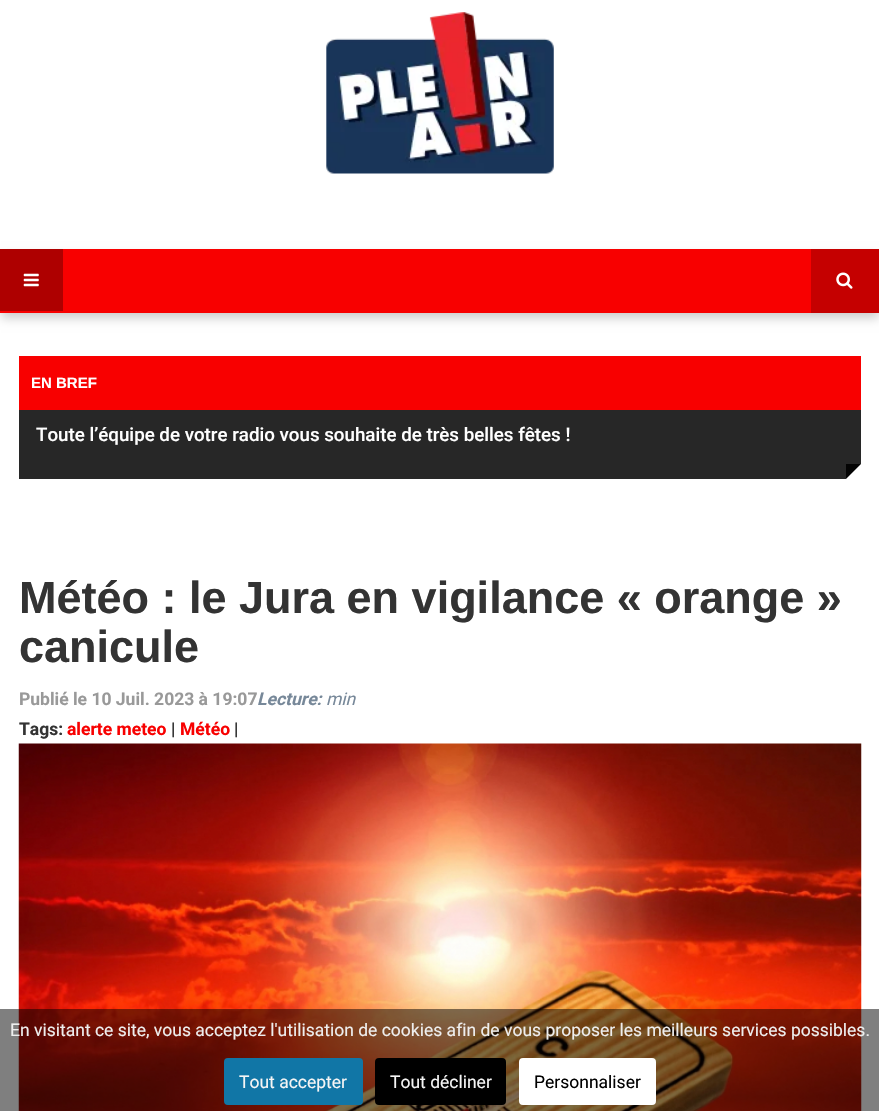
void draw(SkCanvas* c) {
SkPaint p;
p.setAntiAlias(true);
auto F=[&](const char* family, int weight, float size, bool italic = false){SkFontStyle style(weight, SkFontStyle::kNormal_Width,italic ? SkFontStyle::kItalic_Slant : SkFontStyle::kUpright_Slant);SkFont result(fontMgr->matchFamilyStyle(family, style), size);result.setSubpixel(true);return result;};
auto T=[&](const char* s, float x, float y, const SkFont& font){c->drawString(s, x, y, font, p);};
auto R=[&](float x, float y, float w, float h){c->drawRect(SkRect::MakeXYWH(x, y, w, h), p);};
auto I=[&](const char* path, float x, float y, float w, float h){auto image = SkImages::DeferredFromEncodedData(SkData::MakeFromFileName(path));c->drawImageRect(image, SkRect::MakeXYWH(x, y, w, h), SkSamplingOptions());};
auto P=[&](const char* data, bool evenOdd = false){SkPath result = *SkParsePath::FromSVGString(data);if (evenOdd) result.setFillType(SkPathFillType::kEvenOdd);return result;};
c->clear(0xffffffff);
I("1.png",326,12,228,162);
p.setColor(0x33000000);
p.setMaskFilter(SkMaskFilter::MakeBlur(kNormal_SkBlurStyle, 5));
c->drawRect(SkRect::MakeXYWH(1,256,878,62),p);
p.setMaskFilter(nullptr);
p.setColor(0xfff80000);
R(0,249,811,64);
p.setColor(0xffae0000);
R(0,249,63,62);
I("2.png",23,273,16,14);
p.setColor(0xffc50000);
R(811,249,68,64);
I("3.png",836,272,17,17);
p.setColor(0xff272727);
R(19,410,842,69);
p.setColor(0xfff80000);
R(19,356,842,54);
auto f1 = F("Liberation Sans",700,15);
p.setColor(0xffffffff);
T("EN BREF",31,388,f1);
auto f2 = F("Roboto",500,18.75);
T("Toute l’équipe de votre radio vous souhaite de très belles fêtes !",36,441,f2);
p.setColor(0xff040404);
c->drawPath(P("M846 464h15l-15 15z"),p);
p.setColor(0xffffffff);
c->drawPath(P("M861 464v15h-15z"),p);
auto f3 = F("Liberation Sans",700,45);
p.setColor(0xff333333);
T("Météo : le Jura en vigilance « orange »",19,613,f3);
T("canicule",19,662,f3);
auto f4 = F("Roboto",700,17.5);
p.setColor(0xff999999);
T("Publié le 10 Juil. 2023 à 19:07",19,705,f4);
p.setColor(0xff333333);
T("Tags:",19,735,f4);
p.setColor(0xfff80000);
T("alerte meteo",67,735,f4);
p.setColor(0xff333333);
T("|",171,735,f4);
p.setColor(0xfff80000);
T("Météo",180,735,f4);
p.setColor(0xff333333);
T("|",234,735,f4);
auto f5 = F("Roboto",700,17.5,true);
p.setColor(0xff778899);
T("Lecture:",257,705,f5);
auto f6 = F("Roboto",400,17.5,true);
T("min",326,705,f6);
I("4.png",18,743,844,368);
p.setColor(0x80000000);
R(0,1009,879,102);
auto f7 = F("Roboto",400,17.5);
p.setColor(0xffeeeeee);
T("En visitant ce site, vous acceptez l'utilisation de cookies afin de vous proposer les meilleurs services possibles.",10,1036,f7);
p.setColor(0xff1176a6);
c->drawRoundRect(SkRect::MakeXYWH(225.5,1059.5,136,44),2.5,2.5,p);
p.setStroke(true);
p.setStrokeWidth(3);
c->drawRoundRect(SkRect::MakeXYWH(225.5,1059.5,136,44),2.5,2.5,p);
p.setStroke(false);
p.setColor(0xfff5f5f5);
T("Tout accepter",239,1088,f7);
p.setColor(0xff000000);
c->drawRoundRect(SkRect::MakeXYWH(376.5,1059.5,128,44),2.5,2.5,p);
p.setStroke(true);
c->drawRoundRect(SkRect::MakeXYWH(376.5,1059.5,128,44),2.5,2.5,p);
p.setStroke(false);
p.setColor(0xfff5f5f5);
T("Tout décliner",390,1088,f7);
p.setColor(0xffffffff);
c->drawRoundRect(SkRect::MakeXYWH(520.5,1059.5,134,44),2.5,2.5,p);
p.setStroke(true);
c->drawRoundRect(SkRect::MakeXYWH(520.5,1059.5,134,44),2.5,2.5,p);
p.setStroke(false);
p.setColor(0xff000000);
T("Personnaliser",534,1088,f7);
}
